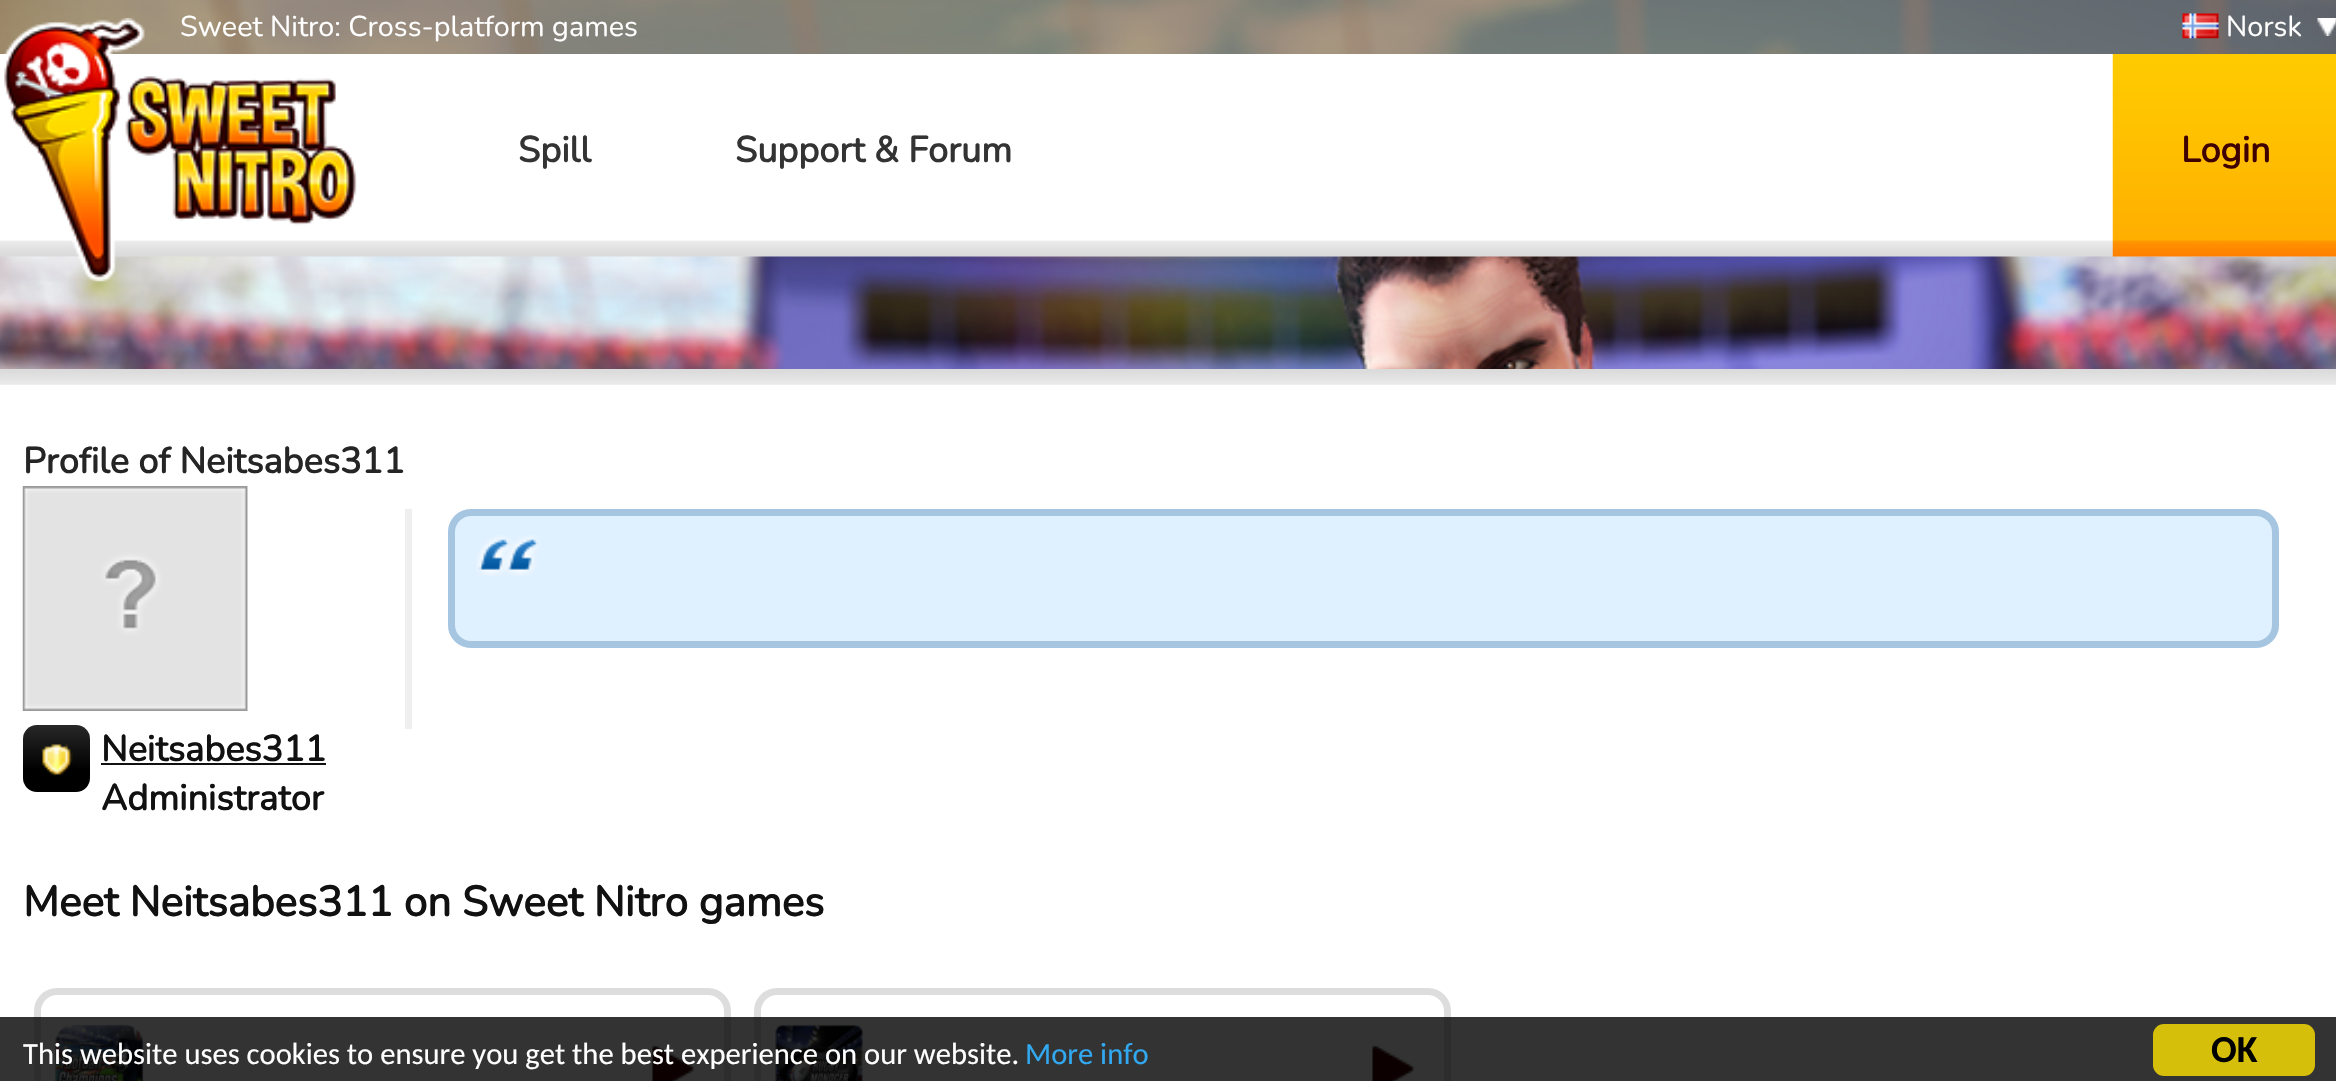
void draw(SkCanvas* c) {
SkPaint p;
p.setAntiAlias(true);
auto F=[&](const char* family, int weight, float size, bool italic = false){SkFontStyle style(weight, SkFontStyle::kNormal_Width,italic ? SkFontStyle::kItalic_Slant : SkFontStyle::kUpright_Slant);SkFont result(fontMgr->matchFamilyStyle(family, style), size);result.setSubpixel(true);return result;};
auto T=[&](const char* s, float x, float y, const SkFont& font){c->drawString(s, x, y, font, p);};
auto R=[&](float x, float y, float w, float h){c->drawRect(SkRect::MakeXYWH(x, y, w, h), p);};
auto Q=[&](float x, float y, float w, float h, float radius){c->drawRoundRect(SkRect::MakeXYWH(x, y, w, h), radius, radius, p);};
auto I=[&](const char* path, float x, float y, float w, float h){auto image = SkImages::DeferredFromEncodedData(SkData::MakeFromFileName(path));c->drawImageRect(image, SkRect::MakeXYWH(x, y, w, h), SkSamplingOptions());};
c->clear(0xffffffff);
I("1.png",0,0,2336,369);
p.setColor(0x806d4000);
R(0,0,2336,54);
auto f1 = F("Nunito",200,28.75);
p.setColor(0xffffffff);
T("Sweet Nitro: Cross-platform games",180,36,f1);
I("2.png",2317,18,19,18);
I("3.png",2182,13,37,26);
T("Norsk",2226,36,f1);
I("4.png",0,54,2336,203);
I("5.png",4,18,353,264);
auto f2 = F("Nunito",700,36);
p.setColor(0xff333333);
T("Spill",518,162,f2);
T("Support & Forum",735,162,f2);
I("6.png",2112,54,224,203);
p.setColor(0xff3f0000);
T("Login",2181,162,f2);
I("7.png",0,369,2336,16);
p.setColor(0xff252525);
T("Profile of Neitsabes311",23,473,f2);
p.setColor(0xffefefef);
R(405,509,7,220);
p.setColor(0xffdff0ff);
Q(448,509,1831,139,23);
I("8.png",476,535,64,42);
p.setStroke(true);
p.setStrokeWidth(7);
p.setColor(0xffa5c5e0);
c->drawRoundRect(SkRect::MakeXYWH(451.5,512.5,1824,132),19.5,19.5,p);
I("9.png",22,486,226,225);
p.setStroke(false);
{
const SkColor colors[] = {0xff282828,0xff000000};
const float stops[] = {0,.67};
const SkPoint ends[] = {{56,725}, {56,792}};
p.setShader(SkGradientShader::MakeLinear(ends, colors, stops, 2, SkTileMode::kClamp));
p.setAlpha(255);
}
Q(23,725,67,67,14);
I("10.png",41,744,32,32);
p.setShader(nullptr);
p.setColor(0xff111111);
T("Neitsabes311",101,761,f2);
R(101,763,225,2);
T("Administrator",101,810,f2);
auto f3 = F("Nunito",700,42.1);
T("Meet Neitsabes311 on Sweet Nitro games",23,916,f3);
p.setStroke(true);
p.setColor(0xffdddddd);
c->drawRoundRect(SkRect::MakeXYWH(37.5,991.5,690,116),19.5,19.5,p);
I("11.png",54,1024,90,57);
I("12.png",652,1045,42,36);
c->drawRoundRect(SkRect::MakeXYWH(757.5,991.5,690,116),19.5,19.5,p);
I("13.png",775,1024,88,57);
I("12.png",1372,1045,42,36);
p.setStroke(false);
p.setColor(0xcc000000);
R(0,1017,2336,64);
auto f4 = F("Carlito",400,30.6);
p.setColor(0xffffffff);
T("This website uses cookies to ensure you get the best experience on our website.",23,1064,f4);
p.setColor(0xff31a8f0);
T("More info",1025,1064,f4);
p.setColor(0xffd6bf0a);
Q(2153,1024,162,52,11);
auto f5 = F("Carlito",700,38);
p.setColor(0xff000000);
T("OK",2211,1062,f5);
}
